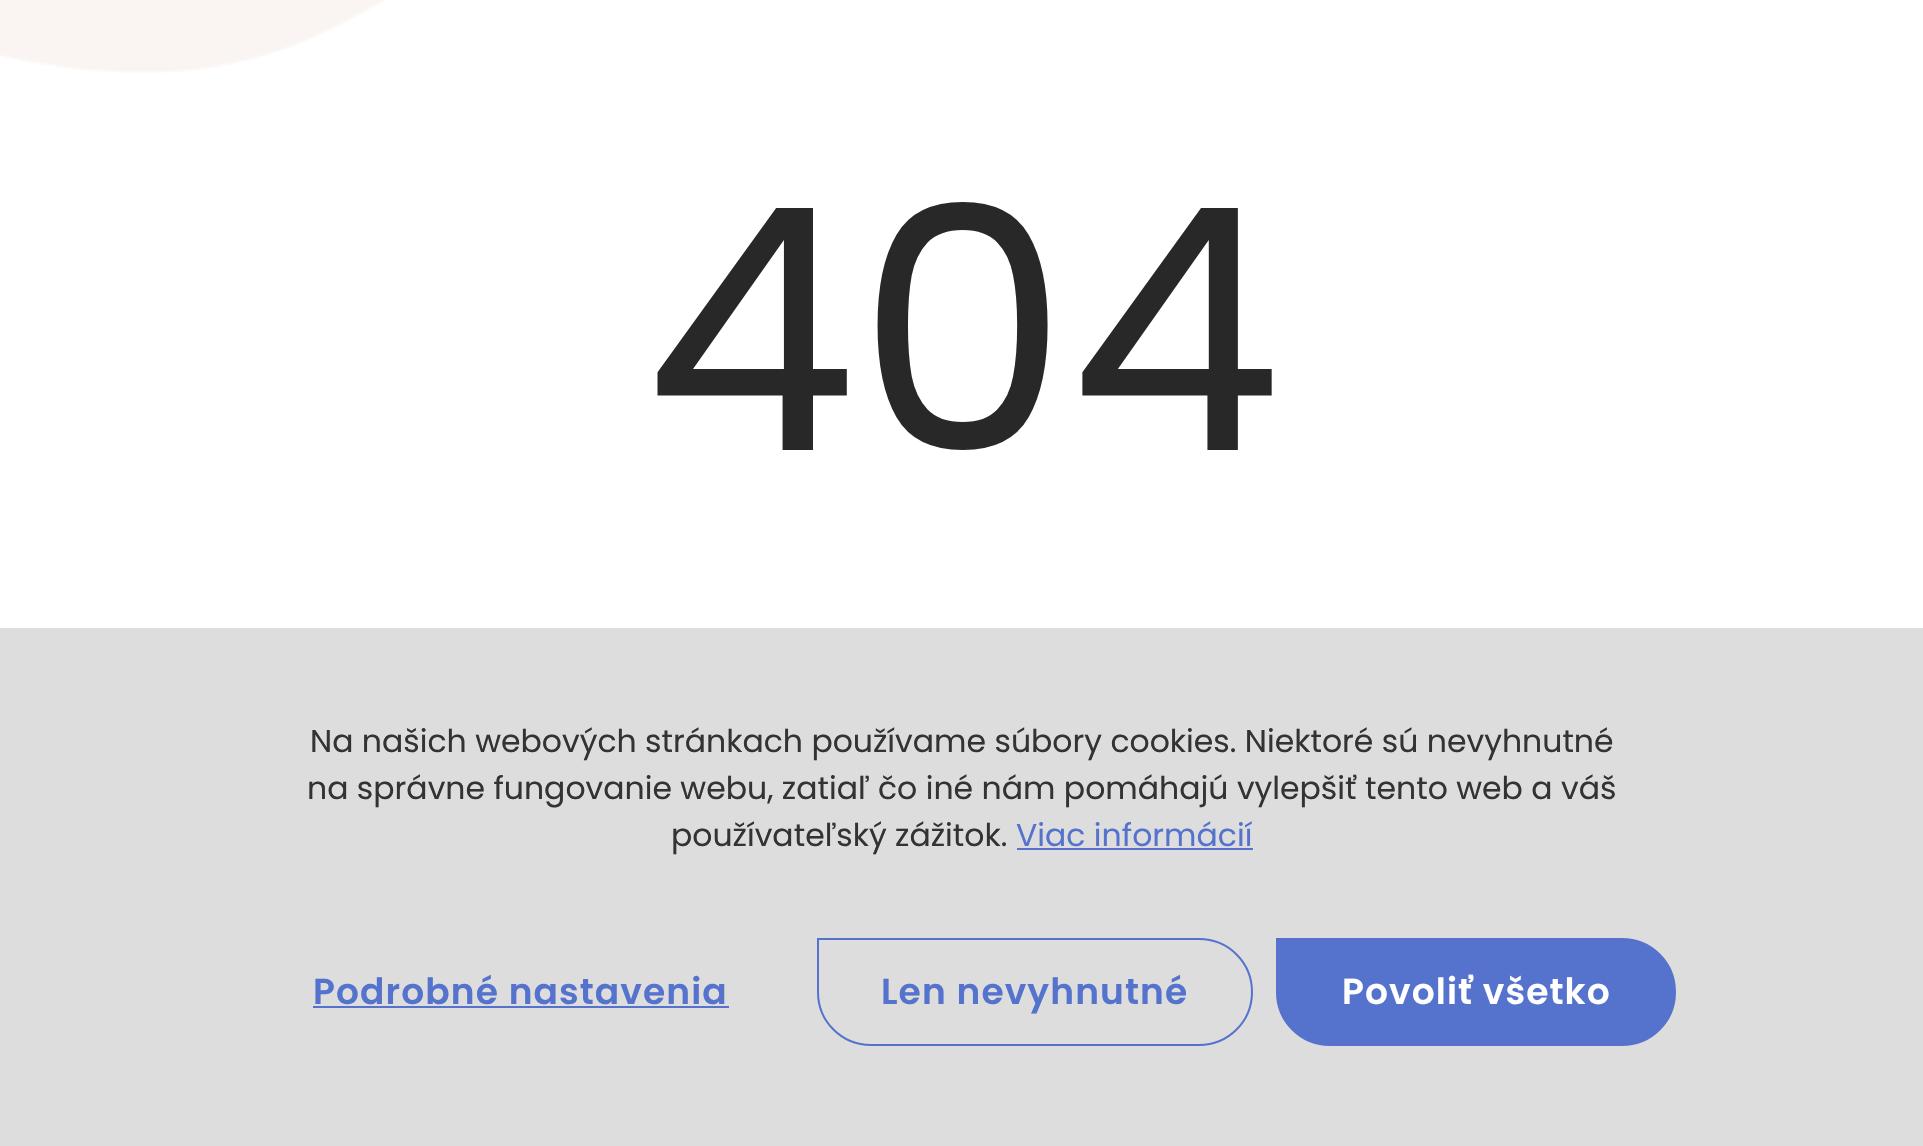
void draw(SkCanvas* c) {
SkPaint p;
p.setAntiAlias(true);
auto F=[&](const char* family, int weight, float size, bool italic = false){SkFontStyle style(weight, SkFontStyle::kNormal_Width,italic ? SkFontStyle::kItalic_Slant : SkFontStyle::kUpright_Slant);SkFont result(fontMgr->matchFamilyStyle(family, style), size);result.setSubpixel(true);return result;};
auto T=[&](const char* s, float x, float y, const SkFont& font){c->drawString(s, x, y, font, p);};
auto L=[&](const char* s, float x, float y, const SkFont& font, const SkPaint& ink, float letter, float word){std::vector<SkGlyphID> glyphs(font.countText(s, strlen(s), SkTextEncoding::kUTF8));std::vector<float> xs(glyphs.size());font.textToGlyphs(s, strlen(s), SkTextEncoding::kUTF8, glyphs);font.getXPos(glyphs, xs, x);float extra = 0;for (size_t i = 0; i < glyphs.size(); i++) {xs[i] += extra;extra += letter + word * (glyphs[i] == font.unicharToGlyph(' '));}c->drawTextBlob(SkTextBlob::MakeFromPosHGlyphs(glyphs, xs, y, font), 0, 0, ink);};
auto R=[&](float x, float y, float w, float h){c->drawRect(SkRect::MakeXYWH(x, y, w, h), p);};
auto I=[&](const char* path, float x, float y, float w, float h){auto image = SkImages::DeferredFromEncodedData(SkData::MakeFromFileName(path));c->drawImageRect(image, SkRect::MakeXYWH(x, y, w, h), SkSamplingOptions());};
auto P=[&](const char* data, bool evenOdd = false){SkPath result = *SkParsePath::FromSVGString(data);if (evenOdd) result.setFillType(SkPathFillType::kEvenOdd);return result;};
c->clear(0xffffffff);
I("1.png",0,0,384,73);
auto f1 = F("Poppins",400,338);
p.setColor(0xff282828);
T("404",644,450,f1);
p.setColor(0xffdddddd);
R(0,628,1923,518);
auto f2 = F("Poppins",400,31.5);
p.setColor(0xff333333);
T("Na našich webových stránkach používame súbory cookies. Niektoré sú nevyhnutné",310,752,f2);
T("na správne fungovanie webu, zatiaľ čo iné nám pomáhajú vylepšiť tento web a váš",307,799,f2);
T("používateľský zážitok.",671,846,f2);
p.setColor(0xff5573cd);
T("Viac informácií",1016,846,f2);
R(1017,848,236,2);
auto f3 = F("Poppins",600,36);
L("Podrobné nastavenia",313,1004,f3,p,1.1,0);
R(313,1006,416,2);
p.setStroke(true);
p.setStrokeWidth(2);
c->drawPath(P("M818 939h381c29.5 0 53 23.5 53 53c0 29.5-23.5 53-53 53h-328c-29.5 0-53-23.5-53-53z"),p);
p.setStroke(false);
L("Len nevyhnutné",881,1004,f3,p,1.1,0);
c->drawPath(P("M1277 939h345c29.5 0 53 23.5 53 53c0 29.5-23.5 53-53 53h-292c-29.5 0-53-23.5-53-53z"),p);
p.setStroke(true);
c->drawPath(P("M1277 939h345c29.5 0 53 23.5 53 53c0 29.5-23.5 53-53 53h-292c-29.5 0-53-23.5-53-53z"),p);
p.setStroke(false);
p.setColor(0xffffffff);
L("Povoliť všetko",1342,1004,f3,p,1.1,0);
}
